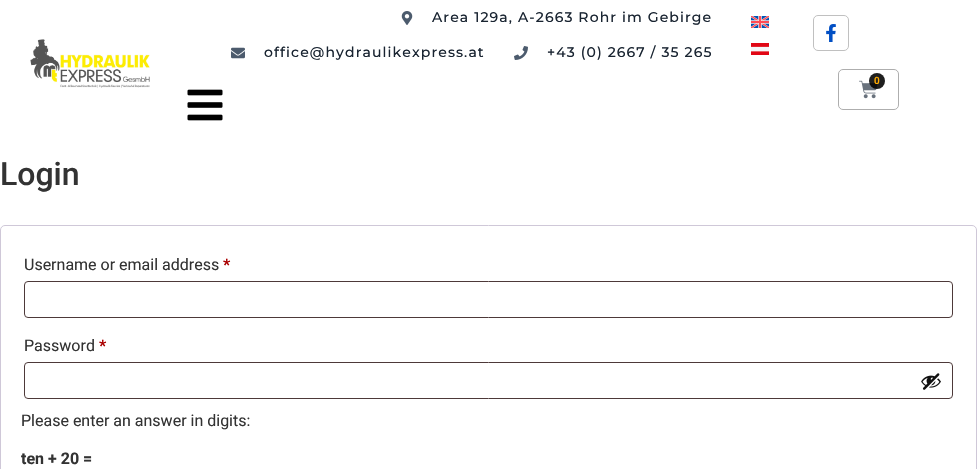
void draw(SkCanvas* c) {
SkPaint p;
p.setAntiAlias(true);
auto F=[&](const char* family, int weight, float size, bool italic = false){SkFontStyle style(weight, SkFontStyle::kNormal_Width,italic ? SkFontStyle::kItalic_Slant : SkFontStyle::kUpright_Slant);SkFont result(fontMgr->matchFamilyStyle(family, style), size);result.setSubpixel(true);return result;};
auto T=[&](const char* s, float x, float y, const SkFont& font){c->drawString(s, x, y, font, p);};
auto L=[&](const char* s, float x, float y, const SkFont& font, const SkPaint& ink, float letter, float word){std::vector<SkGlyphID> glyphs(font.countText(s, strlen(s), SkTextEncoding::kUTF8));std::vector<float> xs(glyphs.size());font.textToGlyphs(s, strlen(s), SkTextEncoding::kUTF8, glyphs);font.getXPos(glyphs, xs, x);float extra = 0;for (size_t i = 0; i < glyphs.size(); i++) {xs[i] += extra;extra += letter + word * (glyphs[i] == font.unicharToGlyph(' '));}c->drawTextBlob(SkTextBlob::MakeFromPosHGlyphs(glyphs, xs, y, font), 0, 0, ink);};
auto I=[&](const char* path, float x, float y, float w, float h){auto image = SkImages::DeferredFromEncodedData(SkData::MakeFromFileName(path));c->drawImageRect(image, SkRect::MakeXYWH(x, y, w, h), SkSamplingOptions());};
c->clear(0xffffffff);
I("1.png",30,39,120,49);
I("2.png",401,11,12,14);
auto f1 = F("Montserrat",500,14);
p.setColor(0xff192431);
L("Area 129a, A-2663 Rohr im Gebirge",432,22,f1,p,1.1,0);
I("3.png",231,47,14,12);
L("office@hydraulikexpress.at",264,57,f1,p,1.1,0);
I("4.png",514,46,14,14);
L("+43 (0) 2667 / 35 265",547,57,f1,p,1.1,0);
I("5.png",751,16,18,12);
I("6.png",751,43,18,12);
p.setStroke(true);
p.setStrokeWidth(1);
p.setColor(0xffc0c0c0);
c->drawRoundRect(SkRect::MakeXYWH(813.5,15.5,35,35),4.5,4.5,p);
I("7.png",826,24,10,18);
p.setColor(0xffaeaeae);
c->drawRoundRect(SkRect::MakeXYWH(838.5,69.5,60,40),4.5,4.5,p);
I("8.png",859,80,19,19);
p.setStroke(false);
p.setColor(0xe0000000);
c->drawCircle(877,81,8,p);
auto f2 = F("Roboto",600,10);
p.setColor(0xffffab00);
T("0",874,84,f2);
I("9.png",187,89,36,32);
auto f3 = F("Roboto",500,32);
p.setColor(0xff333333);
T("Login",0,185,f3);
p.setStroke(true);
p.setColor(0xffcfc8d8);
c->drawRoundRect(SkRect::MakeXYWH(.5,225.5,976,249),4.5,4.5,p);
auto f4 = F("Roboto",400,16);
p.setStroke(false);
p.setColor(0xff333333);
T("Username or email address",24,270,f4);
auto f5 = F("Roboto",700,16);
p.setColor(0xffaa0000);
T("*",223,270,f5);
p.setStroke(true);
p.setColor(0xff4d3939);
c->drawRoundRect(SkRect::MakeXYWH(24.5,281.5,928,36),3.5,3.5,p);
p.setStroke(false);
p.setColor(0xff333333);
T("Password",24,351,f4);
p.setColor(0xffaa0000);
T("*",99,351,f5);
p.setStroke(true);
p.setColor(0xff4d3939);
c->drawRoundRect(SkRect::MakeXYWH(24.5,362.5,928,36),3.5,3.5,p);
I("10.png",921,373,20,17);
p.setStroke(false);
p.setColor(0xff333333);
T("Please enter an answer in digits:",21,426,f4);
T("ten + 20 =",21,464,f5);
}
